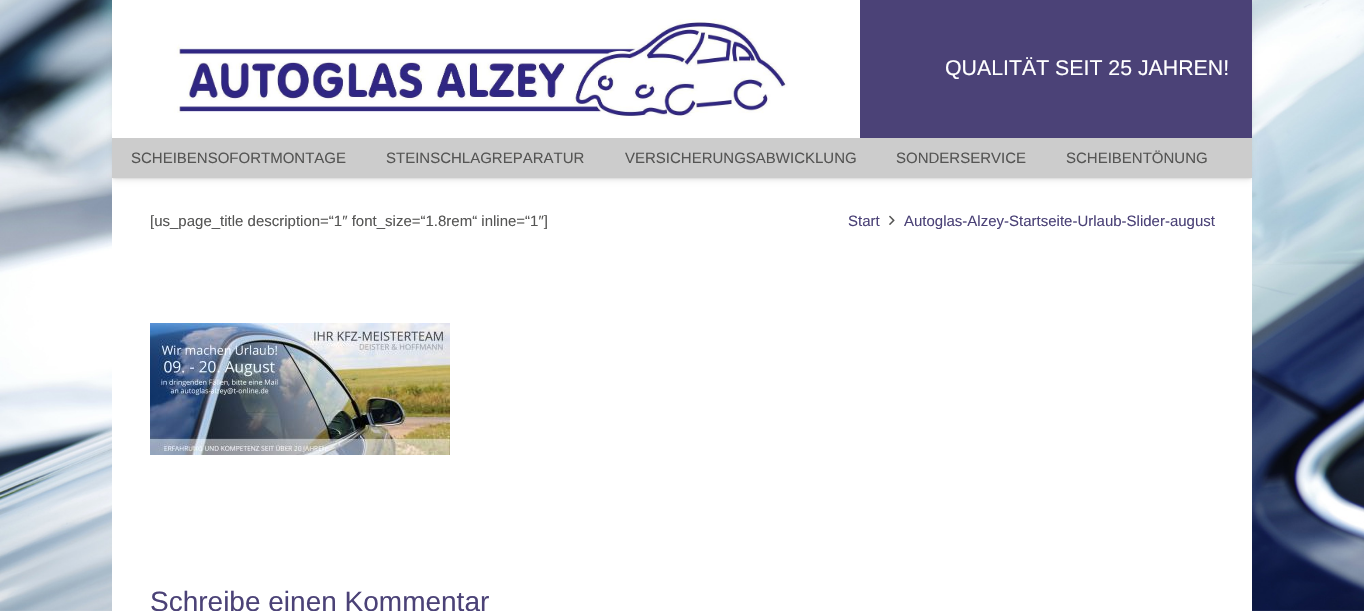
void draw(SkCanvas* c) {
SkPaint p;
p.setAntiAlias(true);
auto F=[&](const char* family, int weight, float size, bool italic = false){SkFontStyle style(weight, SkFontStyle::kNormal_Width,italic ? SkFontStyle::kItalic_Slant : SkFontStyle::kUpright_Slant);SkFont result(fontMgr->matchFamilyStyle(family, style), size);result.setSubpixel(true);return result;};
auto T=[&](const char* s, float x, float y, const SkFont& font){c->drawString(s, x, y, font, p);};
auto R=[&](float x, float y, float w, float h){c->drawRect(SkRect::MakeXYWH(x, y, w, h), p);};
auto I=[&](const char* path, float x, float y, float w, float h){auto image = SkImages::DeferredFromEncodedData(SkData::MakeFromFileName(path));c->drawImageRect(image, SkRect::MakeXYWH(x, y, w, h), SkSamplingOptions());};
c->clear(0xffffffff);
I("1.png",0,0,1364,611);
p.setColor(0xffffffff);
R(112,178,1140,433);
p.setColor(0x1a000000);
p.setMaskFilter(SkMaskFilter::MakeBlur(kNormal_SkBlurStyle, 2.5));
c->drawRect(SkRect::MakeXYWH(113,4,1138,136),p);
p.setMaskFilter(nullptr);
p.setColor(0xff4b4277);
R(860,0,392,138);
p.setColor(0x1a000000);
p.setMaskFilter(SkMaskFilter::MakeBlur(kNormal_SkBlurStyle, 2.5));
c->drawRect(SkRect::MakeXYWH(113,142,1138,38),p);
p.setMaskFilter(nullptr);
I("2.png",112,0,748,138);
auto f1 = F("Liberation Sans",400,21.3);
p.setColor(0xffffffff);
T("QUALITÄT SEIT 25 JAHREN!",945,75,f1);
p.setColor(0x0d000000);
p.setMaskFilter(SkMaskFilter::MakeBlur(kNormal_SkBlurStyle, .5));
c->drawRect(SkRect::MakeXYWH(113,141,1138,38),p);
p.setMaskFilter(nullptr);
p.setColor(0xffcccccc);
R(112,138,1140,40);
auto f2 = F("Liberation Sans",400,15);
p.setColor(0xff555554);
T("SCHEIBENSOFORTMONTAGE",131,163,f2);
T("STEINSCHLAGREPARATUR",386,163,f2);
T("VERSICHERUNGSABWICKLUNG",625,163,f2);
T("SONDERSERVICE",896,163,f2);
T("SCHEIBENTÖNUNG",1066,163,f2);
T("[us_page_title description=“1″ font_size=“1.8rem“ inline=“1″]",150,226,f2);
p.setColor(0xff4b4277);
T("Start",848,226,f2);
I("3.png",889,215,6,10);
T("Autoglas-Alzey-Startseite-Urlaub-Slider-august",904,226,f2);
I("4.png",150,323,300,132);
auto f3 = F("Liberation Sans",400,28);
T("Schreibe einen Kommentar",150,611,f3);
}
